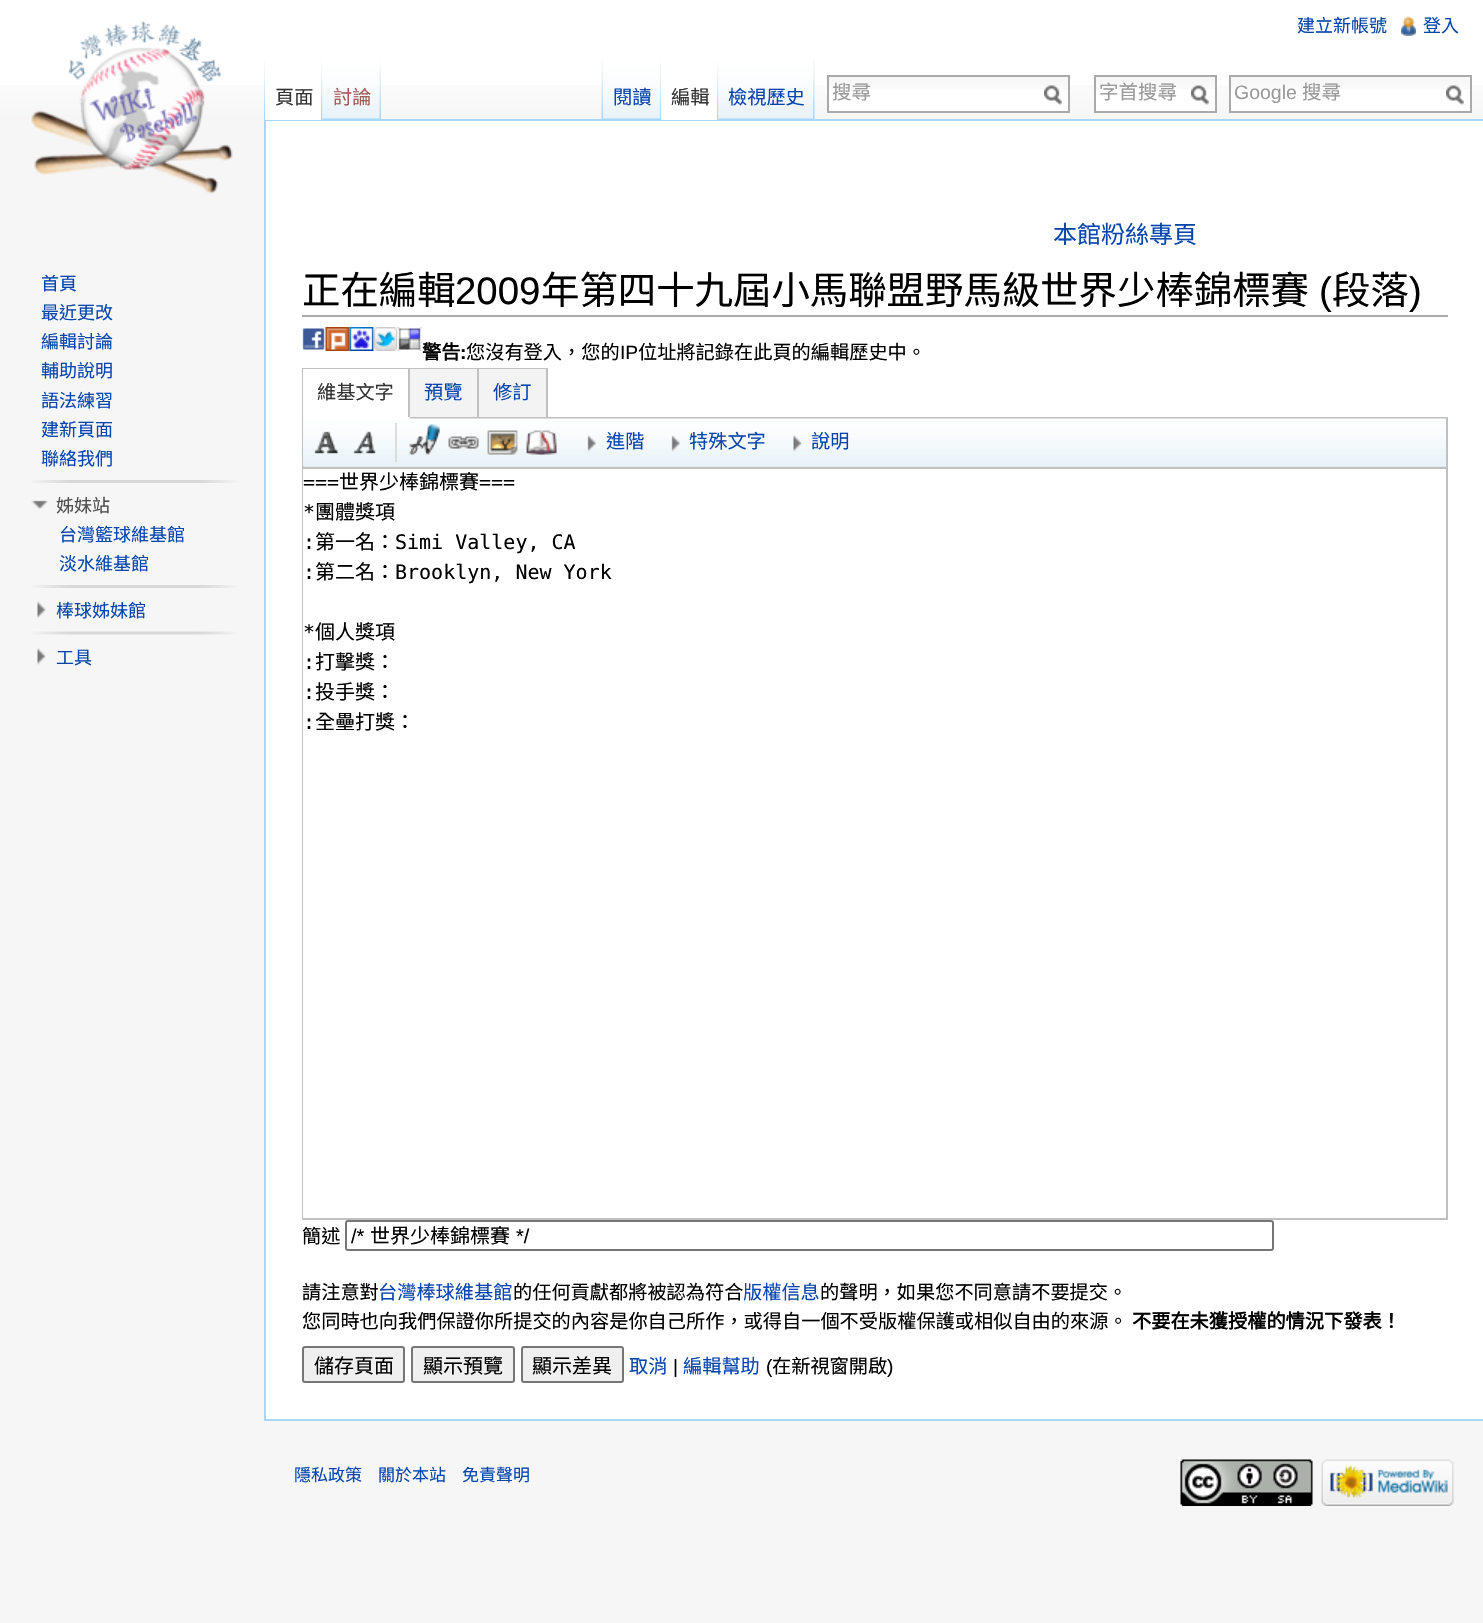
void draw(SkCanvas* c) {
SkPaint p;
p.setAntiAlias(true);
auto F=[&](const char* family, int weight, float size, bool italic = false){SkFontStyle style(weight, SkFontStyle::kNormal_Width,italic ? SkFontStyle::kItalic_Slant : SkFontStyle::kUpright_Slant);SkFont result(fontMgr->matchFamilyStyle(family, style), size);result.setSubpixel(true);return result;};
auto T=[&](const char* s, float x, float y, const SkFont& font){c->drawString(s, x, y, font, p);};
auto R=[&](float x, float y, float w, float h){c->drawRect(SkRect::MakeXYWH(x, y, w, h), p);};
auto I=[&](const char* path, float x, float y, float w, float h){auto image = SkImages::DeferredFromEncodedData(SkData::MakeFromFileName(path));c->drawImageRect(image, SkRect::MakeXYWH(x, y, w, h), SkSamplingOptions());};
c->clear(0xfff6f6f6);
p.setColor(0xffffffff);
R(0,0,1483,85);
I("1.png",0,85,1483,35);
auto f1 = F("Noto Sans CJK TC",400,18);
p.setColor(0xff0645ad);
T("建立新帳號",1297,32,f1);
I("2.png",1401,16,15,20);
T("登入",1423,32,f1);
I("3.png",264,60,1,59);
p.setColor(0xffa7d7f9);
R(264,119,1219,2);
R(264,1419,1219,2);
R(264,119,2,1302);
p.setColor(0xffffffff);
R(265,85,58,35);
I("4.png",321,61,2,59);
auto f2 = F("Noto Sans CJK TC",400,19.2);
p.setColor(0xff333333);
T("頁面",275,104,f2);
I("5.png",322,60,59,60);
I("6.png",379,61,2,58);
p.setColor(0xffa55858);
T("討論",333,104,f2);
I("7.png",601,60,2,59);
I("8.png",603,60,58,60);
I("9.png",660,61,1,59);
p.setColor(0xff0645ad);
T("閱讀",613,104,f2);
p.setColor(0xffffffff);
R(661,85,58,35);
I("4.png",717,61,2,59);
p.setColor(0xff333333);
T("編輯",671,104,f2);
p.setColor(0xfff3f3f3);
R(814,60,1,60);
I("10.png",718,60,97,60);
I("11.png",813,61,2,59);
p.setColor(0xff0645ad);
T("檢視歷史",728,104,f2);
p.setColor(0xffffffff);
R(829,89,239,22);
I("12.png",826,76,242,13);
p.setStroke(true);
p.setStrokeWidth(2);
p.setColor(0xffaaaaaa);
c->drawRect(SkRect::MakeXYWH(828,76,241,36),p);
c->save();
c->clipRect(SkRect::MakeXYWH(833,77,216,28));
auto f3 = F("Noto Sans CJK TC",400,19.5);
p.setStroke(false);
p.setColor(0xff999999);
T("搜尋",832,99,f3);
c->restore();
I("13.png",1044,85,18,20);
p.setColor(0xffffffff);
R(1096,89,119,22);
I("14.png",1093,76,122,13);
p.setStroke(true);
p.setColor(0xffaaaaaa);
c->drawRect(SkRect::MakeXYWH(1095,76,121,36),p);
p.setStroke(false);
p.setColor(0xff999999);
T("字首搜尋",1099,99,f3);
I("13.png",1191,85,18,20);
p.setColor(0xffffffff);
R(1231,89,239,22);
I("12.png",1228,76,242,13);
p.setStroke(true);
p.setColor(0xffaaaaaa);
c->drawRect(SkRect::MakeXYWH(1230,76,241,36),p);
auto f4 = F("Liberation Sans",400,19.5);
p.setStroke(false);
p.setColor(0xff999999);
T("Google",1234,99,f4);
T("搜尋",1302,99,f3);
I("15.png",1446,85,18,20);
I("16.png",31,20,202,174);
p.setColor(0xff0645ad);
T("首頁",41,290,f1);
T("最近更改",41,319,f1);
T("編輯討論",41,348,f1);
T("輔助說明",41,377,f1);
T("語法練習",41,407,f1);
T("建新頁面",41,436,f1);
T("聯絡我們",41,465,f1);
I("17.png",32,480,204,3);
I("18.png",31,500,17,9);
p.setColor(0xff4d4d4d);
T("姊妹站",56,512,f1);
p.setColor(0xff0645ad);
T("台灣籃球維基館",59,541,f1);
T("淡水維基館",59,570,f1);
I("17.png",32,585,204,3);
I("19.png",37,601,9,17);
T("棒球姊妹館",56,617,f1);
I("20.png",32,631,204,4);
I("21.png",37,648,9,17);
T("工具",56,664,f1);
p.setColor(0xffffffff);
R(266,121,1217,1298);
auto f5 = F("Noto Sans CJK TC",400,24);
p.setColor(0xff0645ad);
T("本館粉絲專頁",1053,243,f5);
p.setColor(0xffaaaaaa);
R(302,315,1146,2);
auto f6 = F("Noto Sans CJK TC",400,38.4);
p.setColor(0xff000000);
T("正在編輯",302,304,f6);
auto f7 = F("Liberation Sans",400,38.4);
T("2009",455,304,f7);
T("年第四十九屆小馬聯盟野馬級世界少棒錦標賽",541,304,f6);
T("(",1319,304,f7);
T("段落",1332,304,f6);
T(")",1409,304,f7);
I("22.png",302,328,23,22);
I("23.png",325,327,25,24);
I("24.png",349,327,25,24);
I("25.png",373,327,25,24);
I("26.png",397,327,25,24);
auto f8 = F("Noto Sans CJK TC",700,19.2);
T("警告",422,359,f8);
auto f9 = F("Liberation Sans",700,19.2);
T(":",460,359,f9);
T("您沒有登入，您的",466,359,f2);
auto f10 = F("Liberation Sans",400,19.2);
T("IP",620,359,f10);
T("位址將記錄在此頁的編輯歷史中。",638,359,f2);
p.setColor(0xffe0eef7);
R(304,466,1142,1);
p.setStroke(true);
p.setColor(0xffc0c0c0);
c->drawRect(SkRect::MakeXYWH(303,369,1144,850),p);
p.setStroke(false);
p.setColor(0xffffffff);
R(548,368,880,2);
p.setColor(0xffc0c0c0);
R(548,417,898,2);
p.setColor(0xffffffff);
R(303,369,105,48);
p.setColor(0xffc0c0c0);
R(408,369,2,50);
p.setColor(0xffffffff);
R(303,417,107,2);
p.setColor(0xff333333);
T("維基文字",317,399,f2);
p.setColor(0xfff3f3f3);
R(410,369,67,48);
p.setColor(0xffc0c0c0);
R(477,369,2,50);
R(410,417,69,2);
p.setColor(0xff0645ad);
T("預覽",424,399,f2);
p.setColor(0xfff3f3f3);
R(479,369,67,48);
p.setColor(0xffc0c0c0);
R(546,369,2,50);
R(479,417,69,2);
p.setColor(0xff0645ad);
T("修訂",493,399,f2);
p.setColor(0xffffffff);
R(1428,368,20,49);
p.setColor(0xffc0c0c0);
R(303,467,1143,2);
I("27.png",303,418,1143,49);
p.setColor(0xffdddddd);
R(395,423,2,39);
I("28.png",314,431,24,23);
I("29.png",353,431,23,23);
I("30.png",409,424,31,31);
I("31.png",448,436,31,13);
I("32.png",487,430,31,25);
I("33.png",526,430,31,25);
I("34.png",587,435,9,17);
p.setColor(0xff0645ad);
T("進階",606,448,f2);
I("35.png",671,435,9,17);
T("特殊文字",689,448,f2);
I("36.png",793,435,9,17);
T("說明",811,448,f2);
p.setColor(0xffffffff);
R(303,469,1,749);
auto f11 = F("DejaVu Sans Mono",400,20);
p.setColor(0xff000000);
T("===",303,489,f11);
auto f12 = F("Noto Sans CJK TC",400,20);
T("世界少棒錦標賽",339,489,f12);
T("===",479,489,f11);
T("*",303,519,f11);
T("團體獎項",315,519,f12);
T(":",303,549,f11);
T("第一名：",315,549,f12);
T("Simi Valley, CA",395,549,f11);
T(":",303,579,f11);
T("第二名：",315,579,f12);
T("Brooklyn, New York",395,579,f11);
T("*",303,639,f11);
T("個人獎項",315,639,f12);
T(":",303,669,f11);
T("打擊獎：",315,669,f12);
T(":",303,699,f11);
T("投手獎：",315,699,f12);
T(":",303,729,f11);
T("全壘打獎：",315,729,f12);
T("簡述",302,1243,f2);
p.setStroke(true);
p.setColor(0xff767676);
c->drawRoundRect(SkRect::MakeXYWH(346,1221,927,29),2,2,p);
auto f13 = F("Liberation Sans",400,20);
p.setStroke(false);
p.setColor(0xff000000);
T("/*",351,1243,f13);
T("世界少棒錦標賽",370,1243,f12);
T("*/",516,1243,f13);
T("請注意對",302,1299,f2);
p.setColor(0xff0645ad);
T("台灣棒球維基館",378,1299,f2);
p.setColor(0xff000000);
T("的任何貢獻都將被認為符合",513,1299,f2);
p.setColor(0xff0645ad);
T("版權信息",743,1299,f2);
p.setColor(0xff000000);
T("的聲明，如果您不同意請不要提交。",820,1299,f2);
T("您同時也向我們保證你所提交的內容是你自己所作，或得自一個不受版權保護或相似自由的來源。",302,1328,f2);
T("不要在未獲授權的情況下發表！",1132,1328,f8);
p.setColor(0xffefefef);
c->drawRoundRect(SkRect::MakeXYWH(303,1347,101,35),2,2,p);
p.setStroke(true);
p.setColor(0xff767676);
c->drawRoundRect(SkRect::MakeXYWH(303,1347,101,35),2,2,p);
p.setStroke(false);
p.setColor(0xff000000);
T("儲存頁面",314,1373,f12);
p.setColor(0xffefefef);
c->drawRoundRect(SkRect::MakeXYWH(412,1347,102,35),2,2,p);
p.setStroke(true);
p.setColor(0xff767676);
c->drawRoundRect(SkRect::MakeXYWH(412,1347,102,35),2,2,p);
p.setStroke(false);
p.setColor(0xff000000);
T("顯示預覽",423,1373,f12);
p.setColor(0xffefefef);
c->drawRoundRect(SkRect::MakeXYWH(522,1347,101,35),2,2,p);
p.setStroke(true);
p.setColor(0xff767676);
c->drawRoundRect(SkRect::MakeXYWH(522,1347,101,35),2,2,p);
p.setStroke(false);
p.setColor(0xff000000);
T("顯示差異",532,1373,f12);
p.setColor(0xff0645ad);
T("取消",629,1373,f2);
p.setColor(0xff000000);
T("|",673,1373,f10);
p.setColor(0xff0645ad);
T("編輯幫助",683,1373,f2);
p.setColor(0xff000000);
T("(",766,1373,f10);
T("在新視窗開啟",772,1373,f2);
T(")",887,1373,f10);
auto f14 = F("Noto Sans CJK TC",400,17);
p.setColor(0xff0645ad);
T("隱私政策",294,1481,f14);
T("關於本站",378,1481,f14);
T("免責聲明",462,1481,f14);
I("37.png",1180,1459,133,47);
I("38.png",1321,1459,133,47);
}
